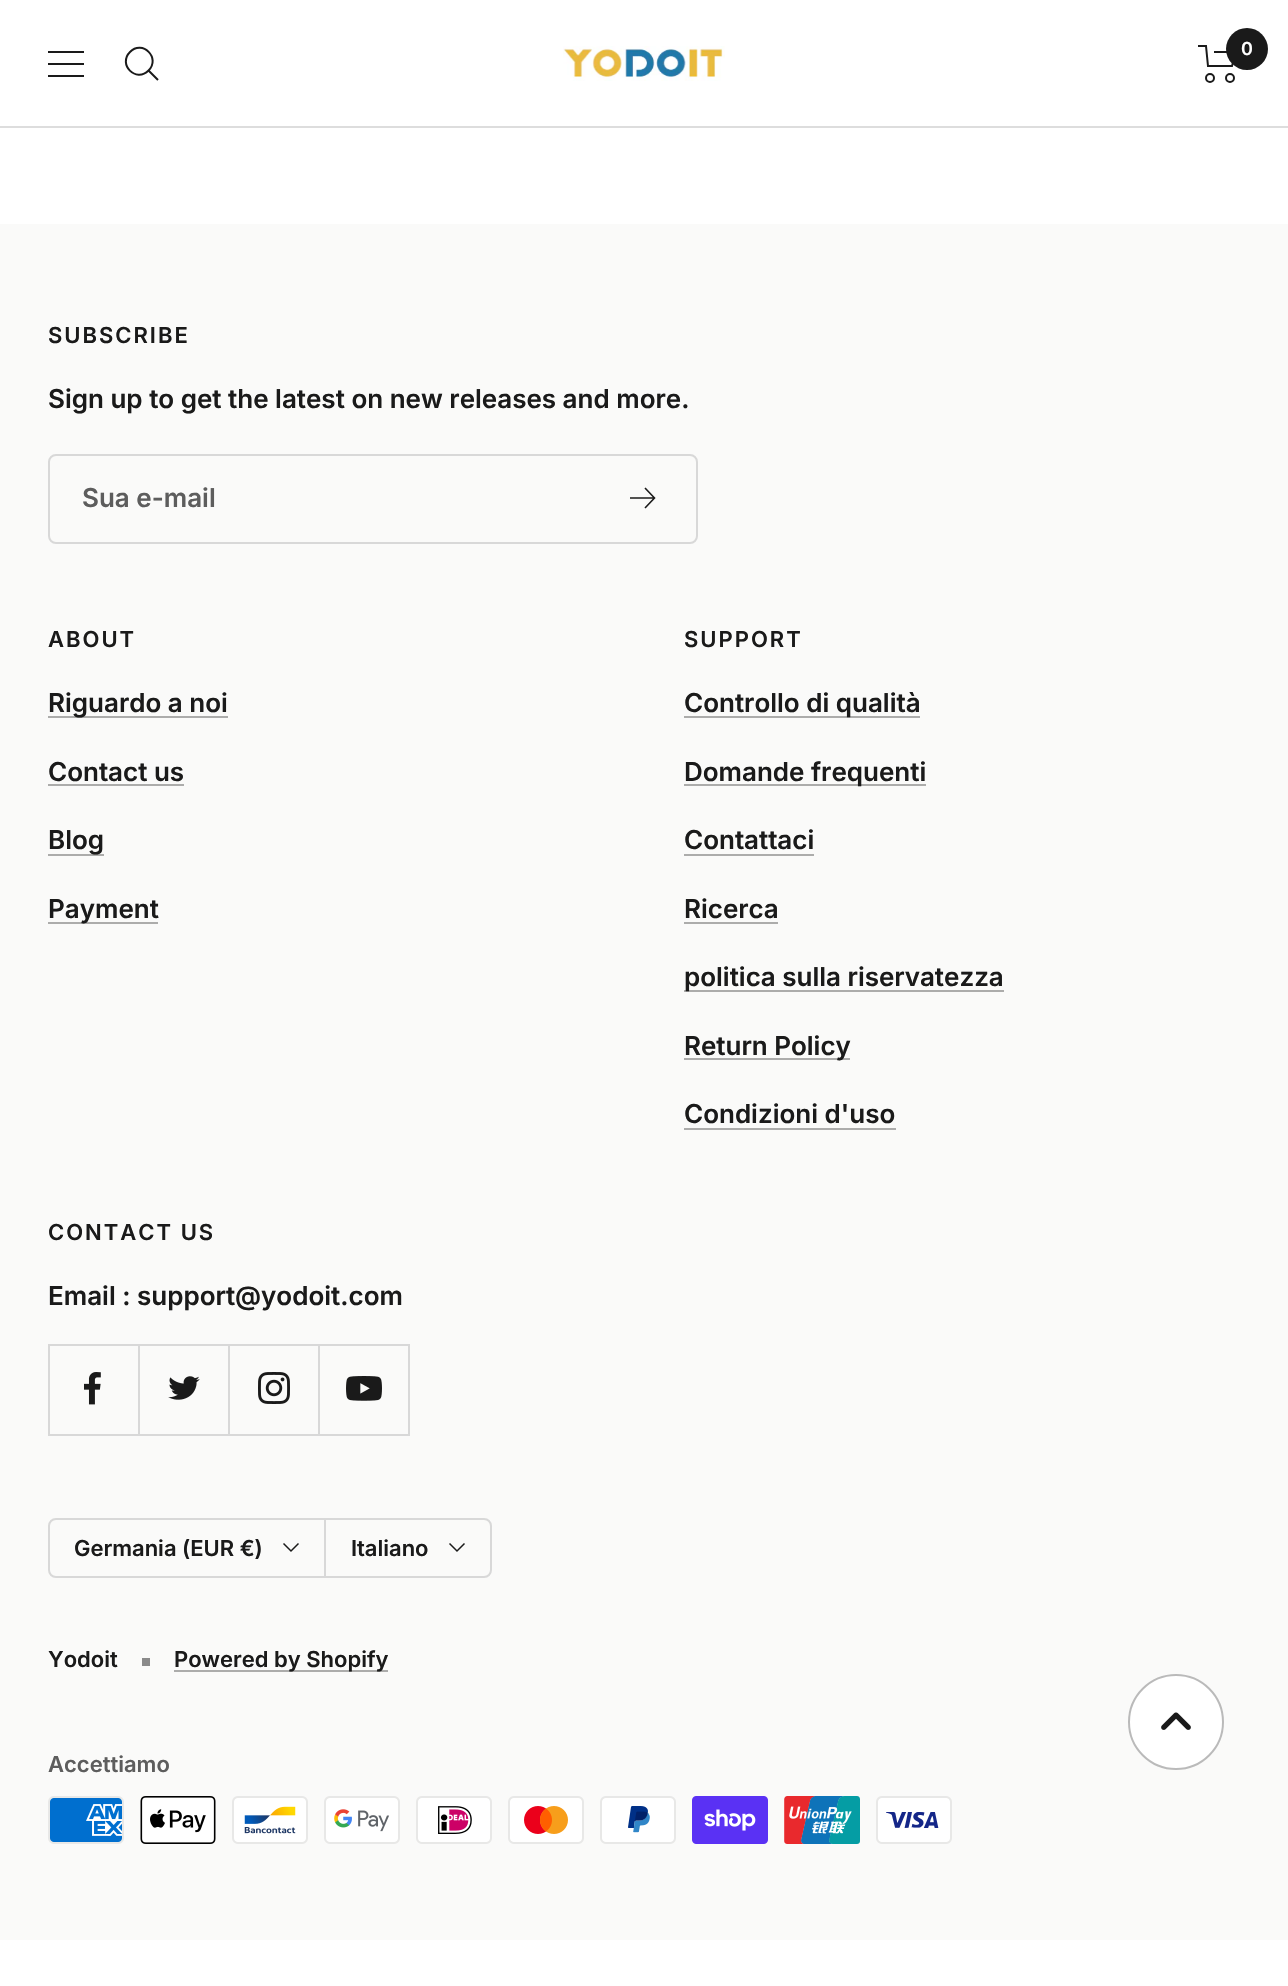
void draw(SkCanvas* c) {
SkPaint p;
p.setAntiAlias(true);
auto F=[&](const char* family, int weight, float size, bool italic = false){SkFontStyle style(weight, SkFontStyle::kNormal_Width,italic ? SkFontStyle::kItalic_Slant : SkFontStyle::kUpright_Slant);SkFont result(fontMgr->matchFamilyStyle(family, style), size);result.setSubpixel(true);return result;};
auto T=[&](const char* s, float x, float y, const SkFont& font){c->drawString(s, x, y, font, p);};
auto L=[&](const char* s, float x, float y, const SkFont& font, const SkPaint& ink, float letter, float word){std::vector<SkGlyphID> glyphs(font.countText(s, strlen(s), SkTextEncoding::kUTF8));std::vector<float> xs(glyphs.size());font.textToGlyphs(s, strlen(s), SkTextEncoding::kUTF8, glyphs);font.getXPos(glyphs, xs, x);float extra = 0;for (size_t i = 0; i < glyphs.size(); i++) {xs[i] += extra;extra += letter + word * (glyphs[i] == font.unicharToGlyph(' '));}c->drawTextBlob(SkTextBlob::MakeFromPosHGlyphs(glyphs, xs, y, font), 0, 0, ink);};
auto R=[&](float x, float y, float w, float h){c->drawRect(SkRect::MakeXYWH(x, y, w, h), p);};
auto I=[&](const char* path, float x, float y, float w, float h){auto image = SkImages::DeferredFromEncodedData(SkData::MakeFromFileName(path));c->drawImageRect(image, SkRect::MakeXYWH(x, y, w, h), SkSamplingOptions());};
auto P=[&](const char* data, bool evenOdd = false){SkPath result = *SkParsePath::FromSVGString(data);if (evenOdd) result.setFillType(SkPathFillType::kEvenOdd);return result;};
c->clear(0xffffffff);
p.setStroke(true);
p.setStrokeWidth(2);
p.setColor(0xff1a1a1a);
c->drawPath(P("M48 52h36m-36 24h36zm0-12h36z"),p);
c->drawPath(P("M148.5 70.5c12.5-12.5-6-31-18.5-18.5c-12.5 12.5 6 31 18.5 18.5zm0 0l9.5 9.5"),p);
I("1.png",563,46,162,35);
c->drawPath(P("M1198 46h8l2 20h24l4-14h-22"),p);
c->drawCircle(1210,78,4,p);
c->drawCircle(1230,78,4,p);
p.setStroke(false);
c->drawCircle(1247,49,21,p);
auto f1 = F("Inter",600,18);
p.setColor(0xffffffff);
T("0",1241,55,f1);
p.setColor(0xffdddddd);
R(0,126,1288,2);
p.setColor(0xfffafaf9);
R(0,224,1288,1716);
auto f2 = F("Inter",600,22);
p.setColor(0xff1a1a1a);
L("SUBSCRIBE",48,343,f2,p,2,0);
auto f3 = F("Inter",600,26);
T("Sign up to get the latest on new releases and more.",48,408,f3);
p.setStroke(true);
p.setColor(0xffd8d8d8);
c->drawRoundRect(SkRect::MakeXYWH(49,455,648,88),7,7,p);
p.setStroke(false);
p.setColor(0xff5d5d5d);
T("Sua e-mail",82,507,f3);
p.setStroke(true);
p.setStrokeWidth(1.6);
p.setColor(0xff1a1a1a);
c->drawPath(P("M630 498h24.5m-9.5-10l9.5 10l-9.5 10"),p);
p.setStroke(false);
L("ABOUT",48,647,f2,p,2,0);
p.setColor(0xffacacab);
R(48,716,180,2);
p.setColor(0xff1a1a1a);
T("Riguardo a noi",48,712,f3);
T("Contact us",48,781,f3);
p.setColor(0xffacacab);
R(48,784,136,2);
R(48,854,56,2);
p.setColor(0xff1a1a1a);
T("Blog",48,849,f3);
p.setColor(0xffacacab);
R(48,922,110,2);
p.setColor(0xff1a1a1a);
T("Payment",48,918,f3);
L("SUPPORT",684,647,f2,p,2,0);
p.setColor(0xffacacab);
R(684,716,236,2);
p.setColor(0xff1a1a1a);
T("Controllo di qualità",684,712,f3);
p.setColor(0xffacacab);
R(684,784,242,2);
p.setColor(0xff1a1a1a);
T("Domande frequenti",684,781,f3);
T("Contattaci",684,849,f3);
p.setColor(0xffacacab);
R(684,854,130,2);
p.setColor(0xff1a1a1a);
T("Ricerca",684,918,f3);
p.setColor(0xffacacab);
R(684,922,94,2);
R(684,990,320,2);
p.setColor(0xff1a1a1a);
T("politica sulla riservatezza",684,986,f3);
p.setColor(0xffacacab);
R(684,1058,166,2);
p.setColor(0xff1a1a1a);
T("Return Policy",684,1055,f3);
T("Condizioni d'uso",684,1123,f3);
p.setColor(0xffacacab);
R(684,1128,212,2);
p.setColor(0xff1a1a1a);
L("CONTACT US",48,1240,f2,p,2,0);
T("Email : support@yodoit.com",48,1305,f3);
p.setColor(0xffd8d8d8);
c->drawPath(P("M50 1434v2h90v-90h-2v88z"),p);
R(48,1434,2,2);
R(48,1344,92,2);
R(48,1344,2,90);
I("2.png",84,1372,17,33);
c->drawPath(P("M140 1434v2h90v-90h-2v88z"),p);
R(138,1344,92,2);
I("3.png",168,1376,32,24);
c->drawPath(P("M230 1434v2h90v-90h-2v88z"),p);
R(228,1344,92,2);
I("4.png",258,1372,32,32);
c->drawPath(P("M320 1434v2h90v-90h-2v88z"),p);
R(318,1344,92,2);
I("5.png",346,1376,36,25);
p.setStroke(true);
p.setStrokeWidth(2);
c->drawPath(P("M56 1519h269v58h-269c-4 0-7-3-7-7v-44c0-4 3-7 7-7z"),p);
p.setStroke(false);
p.setColor(0xff1a1a1a);
T("Germania (EUR €)",74,1556,f2);
p.setStroke(true);
p.setStrokeWidth(1.5);
c->drawPath(P("M283.5 1543.5l7.5 7.5l7.5-7.5"),p);
p.setStrokeWidth(2);
p.setColor(0xffd8d8d8);
c->drawPath(P("M325 1519h159c4 0 7 3 7 7v44c0 4-3 7-7 7h-159z"),p);
p.setStroke(false);
p.setColor(0xff1a1a1a);
T("Italiano",351,1556,f2);
p.setStroke(true);
p.setStrokeWidth(1.5);
c->drawPath(P("M449.5 1543.5l7.5 7.5l7.5-7.5"),p);
p.setStroke(false);
T("Yodoit",48,1667,f2);
p.setColor(0xff8a8a8a);
R(142,1658,8,8);
p.setColor(0xffacacab);
R(174,1670,214,2);
p.setColor(0xff1a1a1a);
T("Powered by Shopify",174,1667,f2);
p.setColor(0xff5d5d5d);
T("Accettiamo",48,1772,f2);
I("6.png",48,1796,76,48);
I("7.png",140,1796,76,48);
I("8.png",232,1796,76,48);
I("9.png",324,1796,76,48);
I("10.png",416,1796,76,48);
I("11.png",508,1796,76,48);
I("12.png",600,1796,76,48);
I("13.png",692,1796,76,48);
I("14.png",784,1796,76,48);
I("15.png",876,1796,76,48);
p.setColor(0xffffffff);
c->drawCircle(1176,1722,48,p);
p.setStroke(true);
p.setStrokeWidth(2);
p.setColor(0x4d1a1a1a);
c->drawCircle(1176,1722,47,p);
I("16.png",1161,1712,30,18);
}
